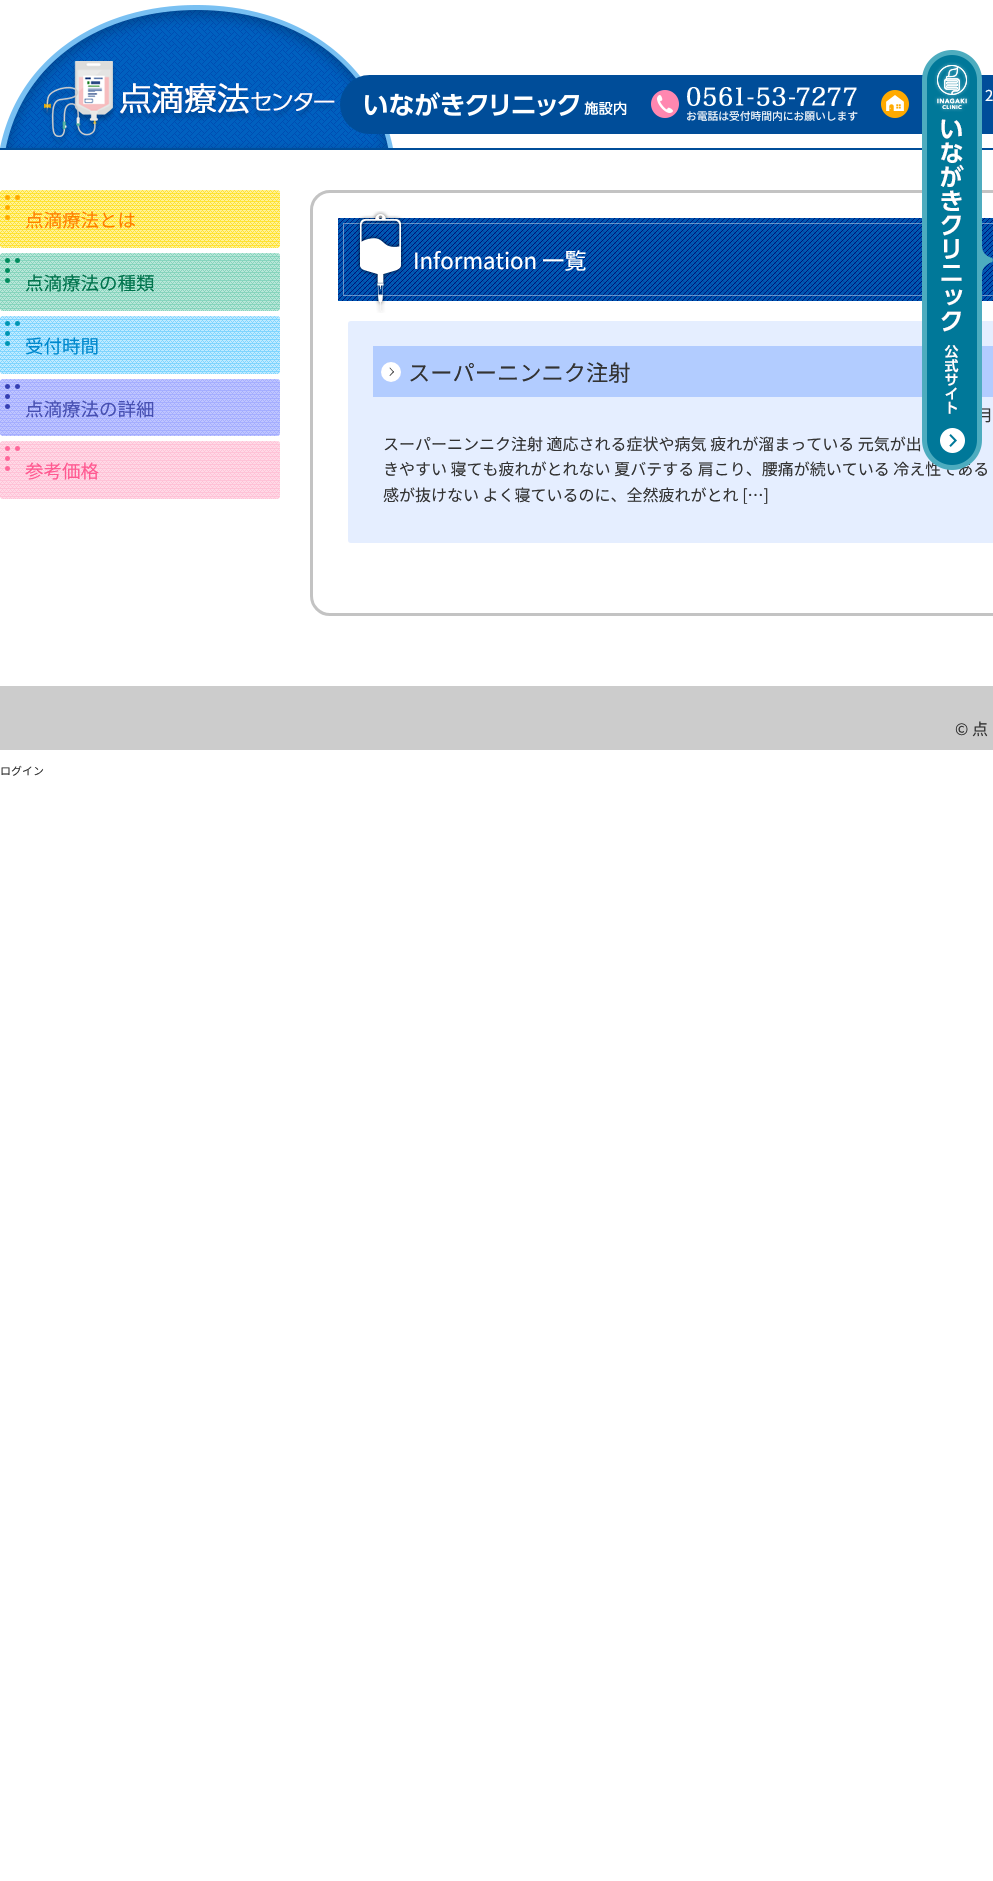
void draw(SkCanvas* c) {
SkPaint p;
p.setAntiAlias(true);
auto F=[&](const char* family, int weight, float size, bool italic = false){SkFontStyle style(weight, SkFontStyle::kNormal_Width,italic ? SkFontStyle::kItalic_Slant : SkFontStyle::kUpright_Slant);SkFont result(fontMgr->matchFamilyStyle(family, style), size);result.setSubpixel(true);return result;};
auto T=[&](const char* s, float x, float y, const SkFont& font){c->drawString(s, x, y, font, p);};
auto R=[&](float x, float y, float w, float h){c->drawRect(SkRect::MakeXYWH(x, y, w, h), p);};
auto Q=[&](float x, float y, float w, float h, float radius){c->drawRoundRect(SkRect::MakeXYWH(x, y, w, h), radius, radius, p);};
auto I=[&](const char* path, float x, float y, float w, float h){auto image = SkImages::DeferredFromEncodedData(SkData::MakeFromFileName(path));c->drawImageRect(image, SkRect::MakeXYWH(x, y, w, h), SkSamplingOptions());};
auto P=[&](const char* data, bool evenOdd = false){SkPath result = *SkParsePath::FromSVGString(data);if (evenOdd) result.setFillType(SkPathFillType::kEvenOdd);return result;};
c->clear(0xffffffff);
I("1.png",0,5,393,143);
p.setColor(0xff004d99);
Q(340,75,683,59,29.5);
auto f1 = F("Noto Sans JP",400,15);
p.setColor(0xffffffff);
T("2",985,101,f1);
p.setColor(0xff004d99);
R(0,148,993,2);
p.setStroke(true);
p.setStrokeWidth(3);
p.setColor(0xffc3c3c3);
c->drawRoundRect(SkRect::MakeXYWH(311.5,191.5,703,423),18.5,18.5,p);
I("12.png",338,218,655,83);
p.setStrokeWidth(1);
p.setColor(0x66ffffff);
c->drawRect(SkRect::MakeXYWH(343.5,223.5,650,72),p);
p.setStroke(false);
p.setColor(0xffe5eeff);
Q(348,321,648,222,3);
p.setColor(0xffb2ccff);
R(373,346,620,51);
auto f2 = F("Noto Sans JP",400,16);
p.setColor(0xff333333);
T("月",977,421,f2);
T("きやすい 寝ても疲れがとれない 夏バテする 肩こり、腰痛が続いている 冷え性である",383,475,f2);
I("2.png",922,50,71,420);
I("3.png",365,92,262,24);
I("4.png",651,90,28,28);
I("5.png",687,87,170,19);
auto f3 = F("Noto Sans JP",400,10.75);
p.setColor(0xffffffff);
T("お電話は受付時間内にお願いします",686,120,f3);
I("6.png",881,90,28,28);
I("7.png",0,190,280,58);
auto f4 = F("Noto Sans JP",400,18.5);
p.setColor(0xffff8000);
T("点滴療法とは",25,227,f4);
I("8.png",0,253,280,58);
p.setColor(0xff00734c);
T("点滴療法の種類",25,290,f4);
I("9.png",0,316,280,58);
p.setColor(0xff0088cc);
T("受付時間",25,353,f4);
I("10.png",0,379,280,57);
p.setColor(0xff4750b2);
T("点滴療法の詳細",25,416,f4);
I("11.png",0,441,280,58);
p.setColor(0xffff5991);
T("参考価格",25,478,f4);
I("13.png",356,211,49,102);
auto f5 = F("Noto Sans JP",400,22.25);
p.setColor(0xffffffff);
T("Information 一覧",413,269,f5);
c->drawCircle(391,372,10,p);
p.setColor(0xff333333);
T("スーパーニンニク注射",408,381,f5);
c->drawPath(P("M390 367.5l4 4.5l-.5 .5l-4-4.5z"),p);
c->drawPath(P("M393.5 371l.5 1l-4 4l-.5-.5z"),p);
T("スーパーニンニク注射 適応される症状や病気 疲れが溜まっている 元気が出",383,450,f2);
T("感が抜けない よく寝ているのに、全然疲れがとれ […]",383,501,f2);
p.setColor(0xffcccccc);
R(0,686,993,64);
p.setColor(0xff333333);
T("© 点",955,735,f2);
auto f6 = F("Noto Sans JP",400,11);
T("ログイン",0,775,f6);
}
